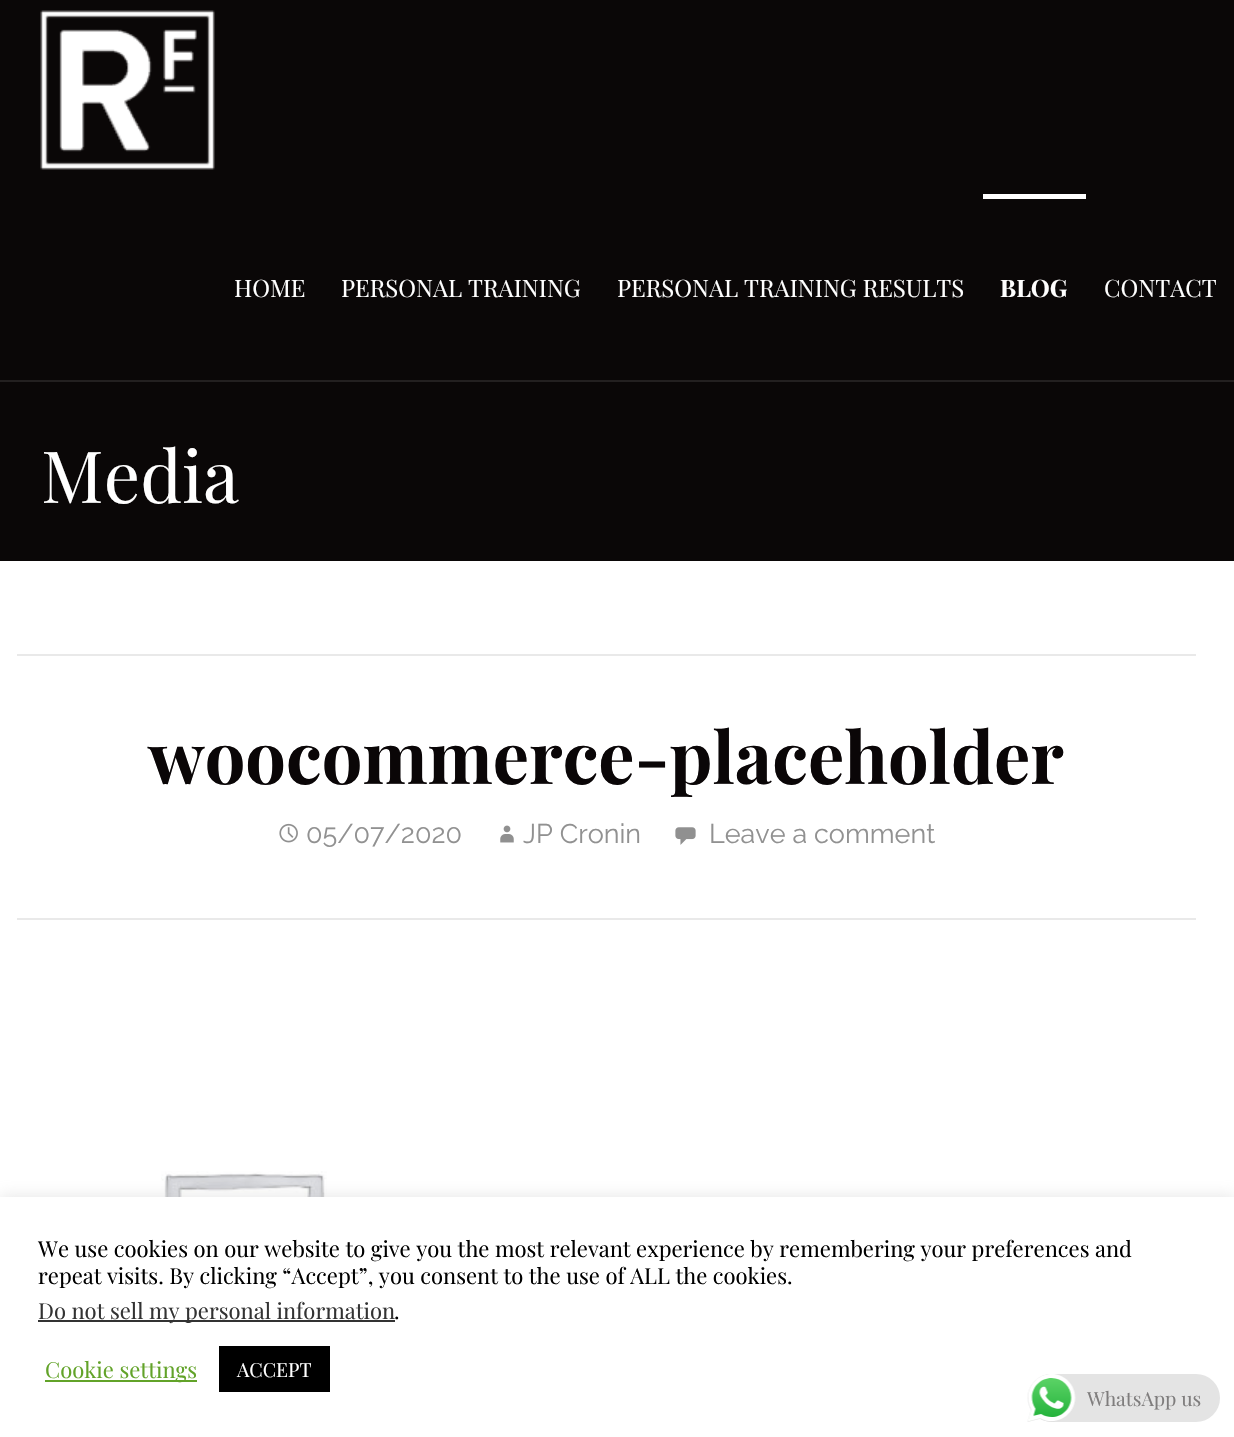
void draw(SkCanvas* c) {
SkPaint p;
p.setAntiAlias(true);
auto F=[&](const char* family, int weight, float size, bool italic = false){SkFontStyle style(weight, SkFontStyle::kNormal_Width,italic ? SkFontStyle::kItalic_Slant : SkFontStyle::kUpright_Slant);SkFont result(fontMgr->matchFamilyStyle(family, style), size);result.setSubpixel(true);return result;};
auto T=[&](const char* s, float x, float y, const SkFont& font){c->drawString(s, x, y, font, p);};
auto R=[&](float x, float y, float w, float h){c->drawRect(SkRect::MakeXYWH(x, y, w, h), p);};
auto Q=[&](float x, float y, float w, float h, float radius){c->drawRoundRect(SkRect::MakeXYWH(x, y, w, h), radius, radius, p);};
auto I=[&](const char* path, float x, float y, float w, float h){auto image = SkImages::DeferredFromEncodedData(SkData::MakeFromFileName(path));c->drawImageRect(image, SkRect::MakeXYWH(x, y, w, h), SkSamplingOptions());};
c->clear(0xffffffff);
p.setColor(0xff0a0707);
R(0,0,1234,561);
p.setColor(0xff232020);
R(0,380,1234,2);
I("1.png",40,10,175,160);
auto f1 = F("Playfair Display",400,24);
p.setColor(0xffffffff);
T("HOME",234,297,f1);
T("PERSONAL TRAINING",341,297,f1);
T("PERSONAL TRAINING RESULTS",617,297,f1);
R(983,194,103,5);
auto f2 = F("Playfair Display",700,24);
T("BLOG",1000,297,f2);
T("CONTACT",1104,297,f1);
auto f3 = F("Playfair Display",400,72);
T("Media",41,503,f3);
p.setColor(0xffe9e9e9);
R(17,654,1179,2);
R(17,918,1179,2);
auto f4 = F("Playfair Display",700,72);
p.setColor(0xff0a0607);
T("woocommerce-placeholder",148,784,f4);
I("2.png",279,823,19,20);
auto f5 = F("Raleway",400,27);
p.setColor(0xff919191);
T("05/07/2020",306,843,f5);
I("3.png",500,825,14,18);
T("JP Cronin",523,843,f5);
I("4.png",675,827,21,18);
T("Leave a comment",709,843,f5);
I("5.png",161,1171,166,26);
p.setColor(0x4dacabab);
p.setMaskFilter(SkMaskFilter::MakeBlur(kNormal_SkBlurStyle, 7.5));
c->drawRect(SkRect::MakeXYWH(0,1196,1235,240),p);
p.setMaskFilter(nullptr);
p.setColor(0xffffffff);
R(0,1197,1234,240);
auto f6 = F("Playfair Display",400,22);
p.setColor(0xff000000);
T("We use cookies on our website to give you the most relevant experience by remembering your preferences and",38,1257,f6);
T("repeat visits. By clicking “Accept”, you consent to the use of ALL the cookies.",38,1284,f6);
p.setColor(0xff333333);
R(38,1320,357,2);
T("Do not sell my personal information",38,1319,f6);
p.setColor(0xff000000);
T(".",394,1319,f6);
p.setColor(0xff62a329);
R(45,1380,152,2);
T("Cookie settings",45,1378,f6);
p.setColor(0xff000000);
R(219,1346,111,46);
auto f7 = F("Playfair Display",400,19.5);
p.setColor(0xffffffff);
T("ACCEPT",237,1377,f7);
p.setColor(0xffe4e4e4);
Q(1028,1374,192,48,24);
I("6.png",1027,1374,49,48);
p.setColor(0xff7f7d7d);
T("WhatsApp us",1087,1406,f7);
}
